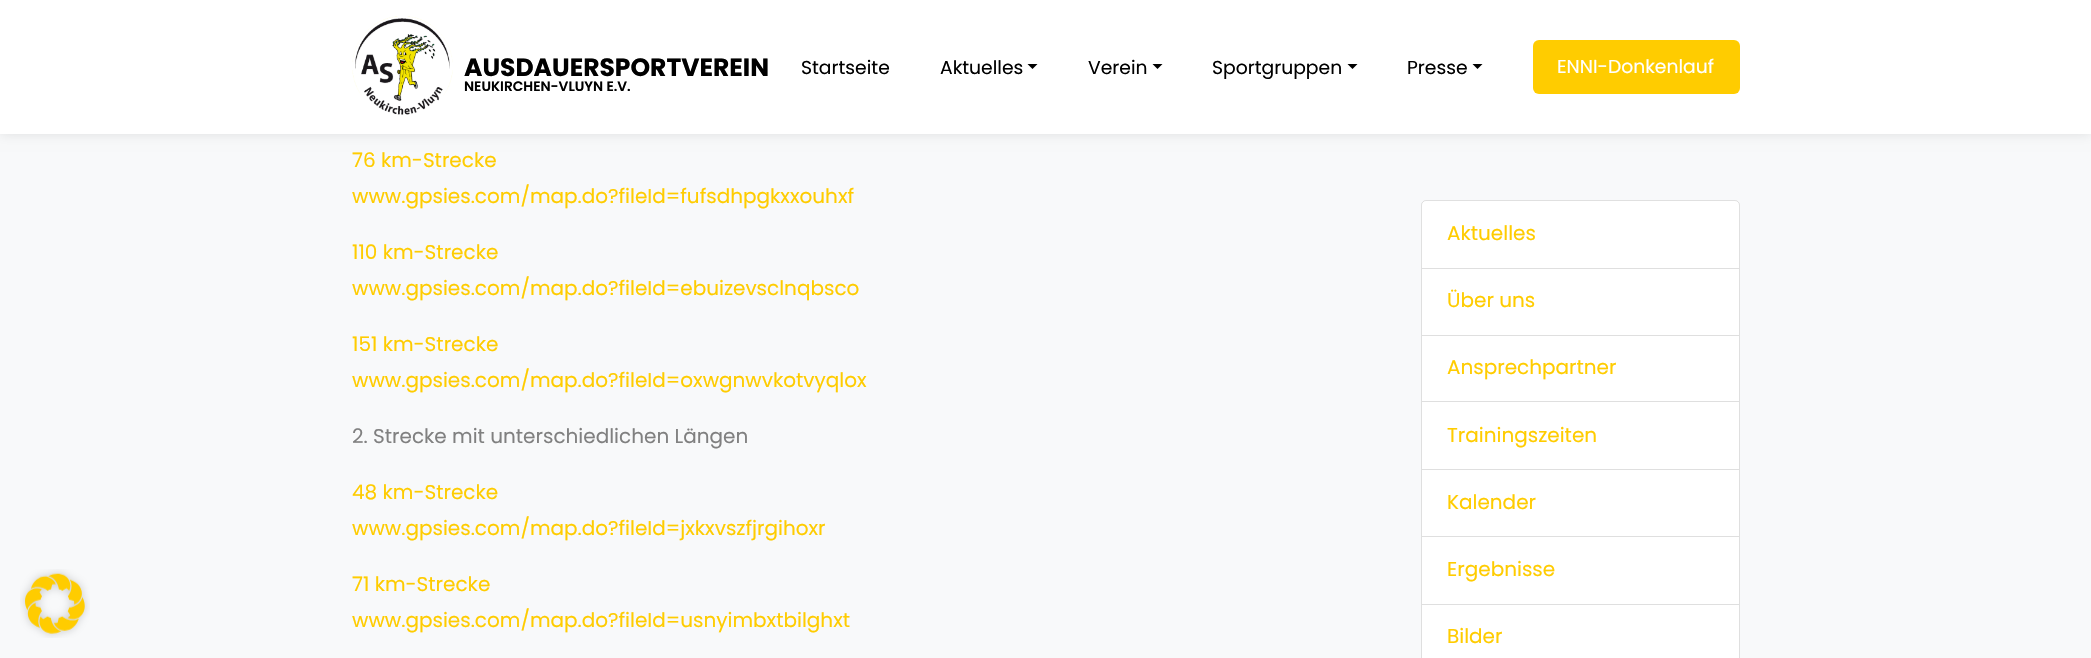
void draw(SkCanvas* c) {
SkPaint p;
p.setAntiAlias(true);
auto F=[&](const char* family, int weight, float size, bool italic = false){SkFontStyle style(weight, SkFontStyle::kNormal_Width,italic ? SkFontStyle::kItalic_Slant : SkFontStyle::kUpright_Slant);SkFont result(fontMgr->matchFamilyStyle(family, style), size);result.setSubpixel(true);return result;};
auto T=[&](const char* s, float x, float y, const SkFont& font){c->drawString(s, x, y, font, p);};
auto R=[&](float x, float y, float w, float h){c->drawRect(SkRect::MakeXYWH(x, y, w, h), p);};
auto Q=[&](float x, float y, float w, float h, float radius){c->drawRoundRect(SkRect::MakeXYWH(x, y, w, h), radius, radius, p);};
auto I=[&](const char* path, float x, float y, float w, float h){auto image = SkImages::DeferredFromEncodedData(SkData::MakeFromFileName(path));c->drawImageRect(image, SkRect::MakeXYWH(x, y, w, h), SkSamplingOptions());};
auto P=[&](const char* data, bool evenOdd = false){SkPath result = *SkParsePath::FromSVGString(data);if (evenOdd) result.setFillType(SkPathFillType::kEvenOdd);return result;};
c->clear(0xfff8f9fa);
p.setColor(0x1a000000);
p.setMaskFilter(SkMaskFilter::MakeBlur(kNormal_SkBlurStyle, 6));
c->drawRect(SkRect::MakeXYWH(0,0,2091,134),p);
p.setMaskFilter(nullptr);
p.setColor(0xffffffff);
R(0,0,2091,134);
I("1.png",352,16,101,99);
auto f1 = F("Poppins",700,25);
p.setColor(0xff000000);
T("AUSDAUERSPORTVEREIN",464,76,f1);
auto f2 = F("Poppins",600,13.75);
T("NEUKIRCHEN-VLUYN E.V.",464,91,f2);
auto f3 = F("Poppins",400,18.75);
T("Startseite",801,74,f3);
T("Aktuelles",940,74,f3);
c->drawPath(P("M1027.5 64h10l-5 5z"),p);
T("Verein",1088,74,f3);
c->drawPath(P("M1152.5 64h10l-5 5z"),p);
T("Sportgruppen",1212,74,f3);
c->drawPath(P("M1347.5 64h10l-5 5z"),p);
T("Presse",1407,74,f3);
c->drawPath(P("M1472.5 64h10l-5 5z"),p);
p.setColor(0xffffcc00);
Q(1533,40,207,54,6);
p.setColor(0xffffffff);
T("ENNI-Donkenlauf",1557,73,f3);
I("2.png",20,569,70,69);
auto f4 = F("Poppins",400,20);
p.setColor(0xffffcc00);
T("76 km-Strecke",352,167,f4);
T("www.gpsies.com/map.do?fileId=fufsdhpgkxxouhxf",352,203,f4);
T("110 km-Strecke",352,259,f4);
T("www.gpsies.com/map.do?fileId=ebuizevsclnqbsco",352,295,f4);
T("151 km-Strecke",352,351,f4);
T("www.gpsies.com/map.do?fileId=oxwgnwvkotvyqlox",352,387,f4);
p.setColor(0xff808080);
T("2. Strecke mit unterschiedlichen Längen",352,443,f4);
p.setColor(0xffffcc00);
T("48 km-Strecke",352,499,f4);
T("www.gpsies.com/map.do?fileId=jxkxvszfjrgihoxr",352,535,f4);
T("71 km-Strecke",352,591,f4);
T("www.gpsies.com/map.do?fileId=usnyimbxtbilghxt",352,627,f4);
p.setColor(0xffffffff);
c->drawPath(P("M1426 200h309c3 0 5 2 5 5v64h-319v-64c0-3 2-5 5-5z"),p);
p.setStroke(true);
p.setStrokeWidth(1);
p.setColor(0x1f000000);
c->drawPath(P("M1426 200.5h309c2.5 0 4.5 2 4.5 4.5v63.5h-318v-63.5c0-2.5 2-4.5 4.5-4.5z"),p);
p.setStroke(false);
p.setColor(0xffffcc00);
T("Aktuelles",1447,240,f4);
p.setColor(0xffffffff);
c->drawRect(SkRect::MakeXYWH(1421.5,268.5,318,67),p);
p.setStroke(true);
p.setColor(0xffdfdfdf);
c->drawRect(SkRect::MakeXYWH(1421.5,268.5,318,67),p);
p.setStroke(false);
p.setColor(0xffffcc00);
T("Über uns",1447,307,f4);
p.setColor(0xffffffff);
R(1422,336,317,65);
p.setStroke(true);
p.setColor(0xffdfdfdf);
c->drawRect(SkRect::MakeXYWH(1421.5,335.5,318,67),p);
p.setStroke(false);
p.setColor(0xffffcc00);
T("Ansprechpartner",1447,374,f4);
p.setColor(0xffffffff);
c->drawRect(SkRect::MakeXYWH(1421.5,401.5,318,68),p);
p.setStroke(true);
p.setColor(0xffdfdfdf);
c->drawRect(SkRect::MakeXYWH(1421.5,401.5,318,68),p);
p.setStroke(false);
p.setColor(0xffffcc00);
T("Trainingszeiten",1447,442,f4);
p.setColor(0xffffffff);
R(1422,470,317,66);
p.setStroke(true);
p.setColor(0xffdfdfdf);
c->drawRect(SkRect::MakeXYWH(1421.5,469.5,318,68),p);
p.setStroke(false);
p.setColor(0xffffcc00);
T("Kalender",1447,509,f4);
p.setColor(0xffffffff);
c->drawRect(SkRect::MakeXYWH(1421.5,536.5,318,68),p);
p.setStroke(true);
p.setColor(0xffdfdfdf);
c->drawRect(SkRect::MakeXYWH(1421.5,536.5,318,68),p);
p.setStroke(false);
p.setColor(0xffffcc00);
T("Ergebnisse",1447,576,f4);
p.setColor(0xffffffff);
c->drawRect(SkRect::MakeXYWH(1421.5,604.5,318,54),p);
p.setStroke(true);
p.setColor(0xffdfdfdf);
c->drawRect(SkRect::MakeXYWH(1421.5,604.5,318,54),p);
p.setStroke(false);
p.setColor(0xffffcc00);
T("Bilder",1447,643,f4);
}
